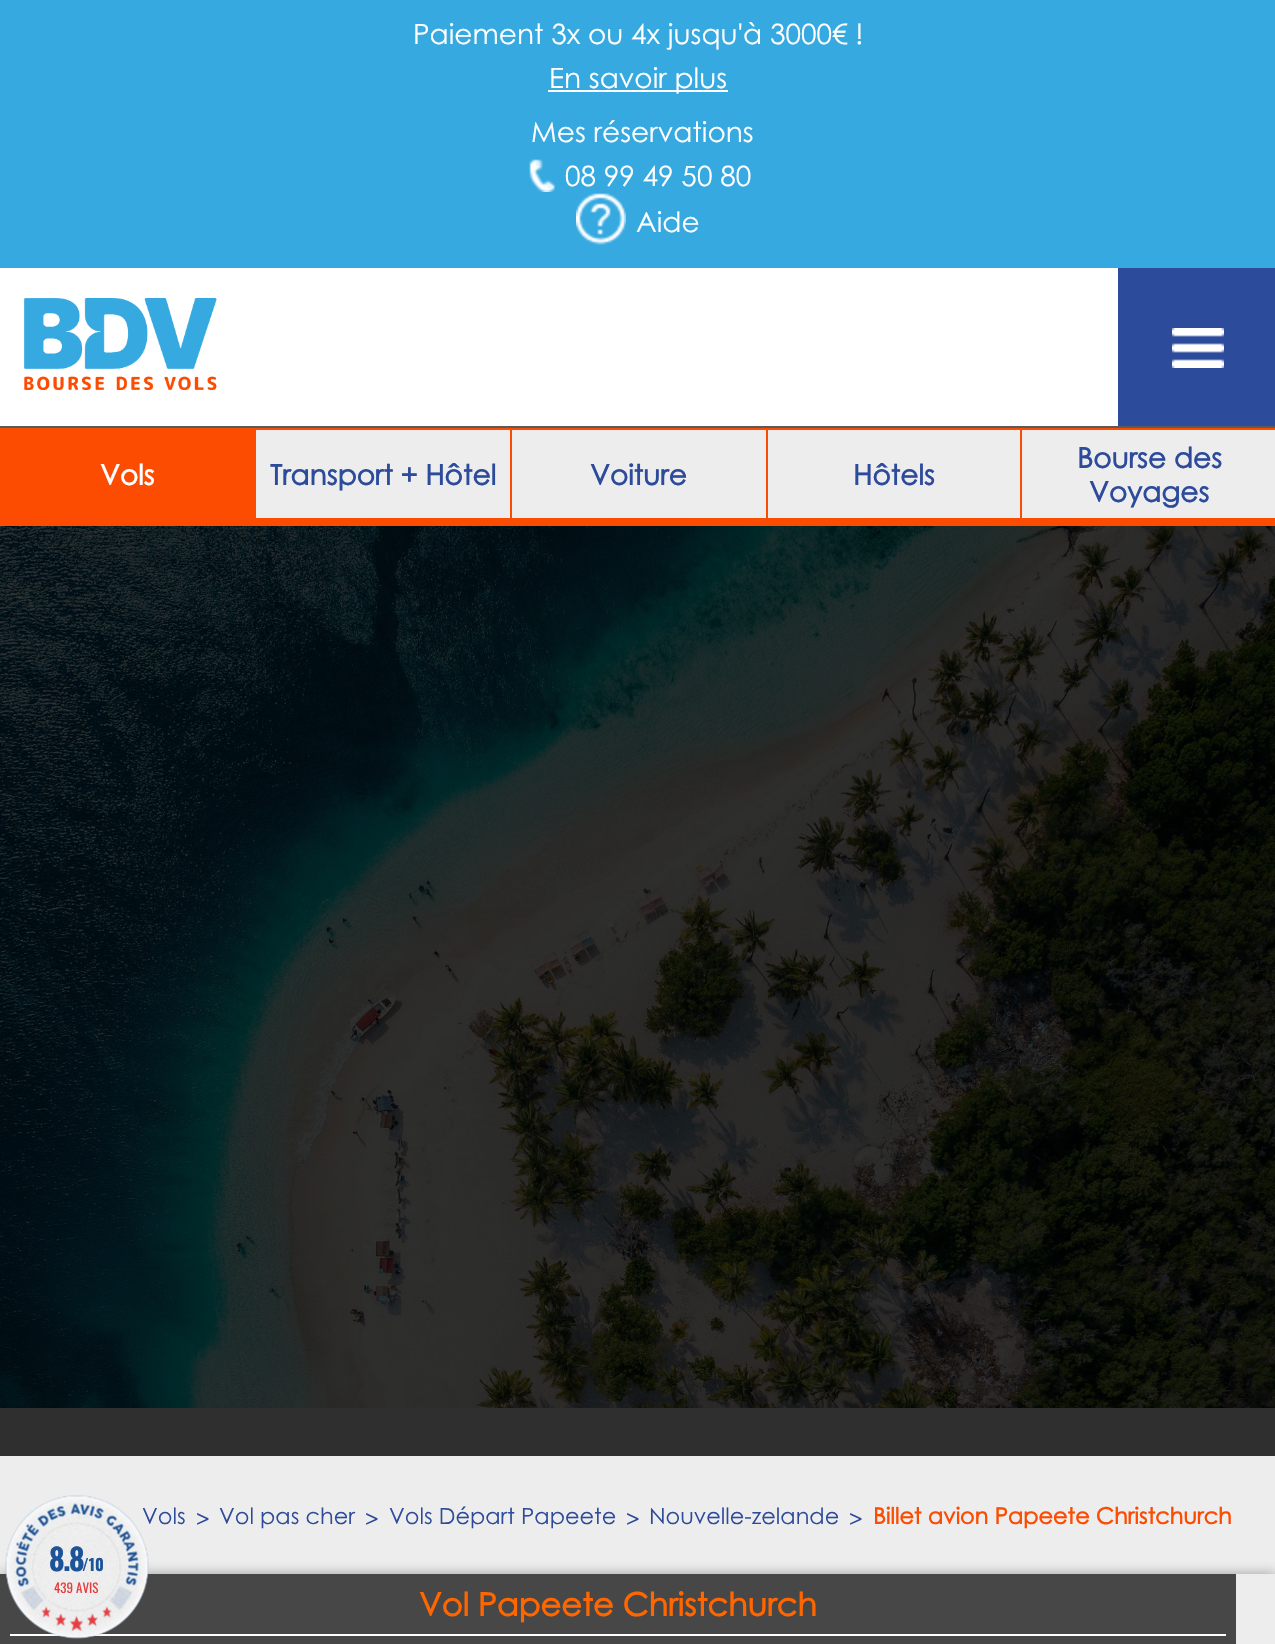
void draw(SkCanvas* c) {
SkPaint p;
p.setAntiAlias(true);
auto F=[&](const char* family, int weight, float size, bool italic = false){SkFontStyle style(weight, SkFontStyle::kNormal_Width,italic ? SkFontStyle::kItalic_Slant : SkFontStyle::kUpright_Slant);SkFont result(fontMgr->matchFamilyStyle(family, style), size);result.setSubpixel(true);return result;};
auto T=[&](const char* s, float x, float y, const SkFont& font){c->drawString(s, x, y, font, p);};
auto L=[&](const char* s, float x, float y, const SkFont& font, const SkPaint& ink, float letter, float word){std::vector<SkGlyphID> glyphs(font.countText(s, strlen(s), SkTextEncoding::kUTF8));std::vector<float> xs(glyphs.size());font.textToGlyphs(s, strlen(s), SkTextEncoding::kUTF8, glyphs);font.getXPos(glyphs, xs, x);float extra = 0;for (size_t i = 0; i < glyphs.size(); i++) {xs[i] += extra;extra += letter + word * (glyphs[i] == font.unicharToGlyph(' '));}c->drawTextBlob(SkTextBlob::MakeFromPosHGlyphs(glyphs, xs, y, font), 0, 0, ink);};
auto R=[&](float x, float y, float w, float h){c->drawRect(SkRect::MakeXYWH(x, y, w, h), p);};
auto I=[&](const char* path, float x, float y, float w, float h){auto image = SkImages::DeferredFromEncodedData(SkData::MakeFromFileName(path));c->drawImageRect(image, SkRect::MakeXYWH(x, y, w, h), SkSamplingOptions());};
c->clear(0xffededed);
p.setColor(0xff36a9e1);
R(0,0,1275,268);
auto f1 = F("Century Gothic",400,28);
p.setColor(0xffffffff);
T("Paiement 3x ou 4x jusqu'à 3000€ !",413,44,f1);
R(548,90,180,2);
T("En savoir plus",549,88,f1);
T("Mes réservations",531,142,f1);
I("1.png",529,159,26,33);
T("08 99 49 50 80",565,186,f1);
I("2.png",576,193,50,52);
T("Aide",636,232,f1);
R(0,268,1118,158);
p.setColor(0xff5a5a5a);
R(0,426,1275,2);
I("3.png",24,298,193,92);
p.setColor(0xff2d4b9b);
R(1118,268,157,158);
I("4.png",1172,328,52,40);
auto f2 = F("Century Gothic",400,22.4);
T("Vols",142,1524,f2);
c->save();
c->clipRect(SkRect::MakeXYWH(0,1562,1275,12));
p.setColor(0xff9e9e9e);
p.setMaskFilter(SkMaskFilter::MakeBlur(kNormal_SkBlurStyle, 6));
c->drawRect(SkRect::MakeXYWH(0,1574,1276,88),p);
p.setMaskFilter(nullptr);
c->restore();
p.setColor(0xff474747);
R(0,1574,1236,70);
p.setColor(0xffffffff);
R(10,1634,1216,2);
I("5.png",5,1495,144,144);
auto f3 = F("Oswald",700,30);
p.setColor(0xff1c5399);
L("8.8",49,1571,f3,p,-1.5,0);
auto f4 = F("Oswald",700,16);
T("/10",82,1571,f4);
auto f5 = F("Oswald",400,13);
p.setColor(0xffe63d40);
T("439 AVIS",54,1593,f5);
I("6.png",41,1606,71,26);
p.setColor(0xff2f2f2f);
R(0,1408,1275,48);
I("7.png",0,526,1275,882);
p.setColor(0xfffc4c02);
R(0,428,1275,2);
R(0,518,1275,8);
R(0,430,256,88);
auto f6 = F("Century Gothic",700,28);
p.setColor(0xffffffff);
T("Vols",100,485,f6);
p.setColor(0xff2d4b9b);
T("Transport + Hôtel",270,485,f6);
p.setColor(0xfffc4c02);
R(510,430,2,88);
p.setColor(0xff2d4b9b);
T("Voiture",590,485,f6);
p.setColor(0xfffc4c02);
R(766,430,2,88);
p.setColor(0xff2d4b9b);
T("Hôtels",853,485,f6);
p.setColor(0xfffc4c02);
R(1020,430,2,88);
p.setColor(0xff2d4b9b);
T("Bourse des",1077,468,f6);
T("Voyages",1089,502,f6);
T(">",196,1527,f2);
T("Vol pas cher",219,1524,f2);
T(">",365,1527,f2);
T("Vols Départ Papeete",389,1524,f2);
T(">",626,1527,f2);
T("Nouvelle-zelande",649,1524,f2);
T(">",849,1527,f2);
auto f7 = F("Century Gothic",700,22.4);
p.setColor(0xfffc4c02);
T("Billet avion Papeete Christchurch",873,1524,f7);
auto f8 = F("Century Gothic",700,32);
p.setColor(0xffff6600);
T("Vol Papeete Christchurch",419,1616,f8);
}
